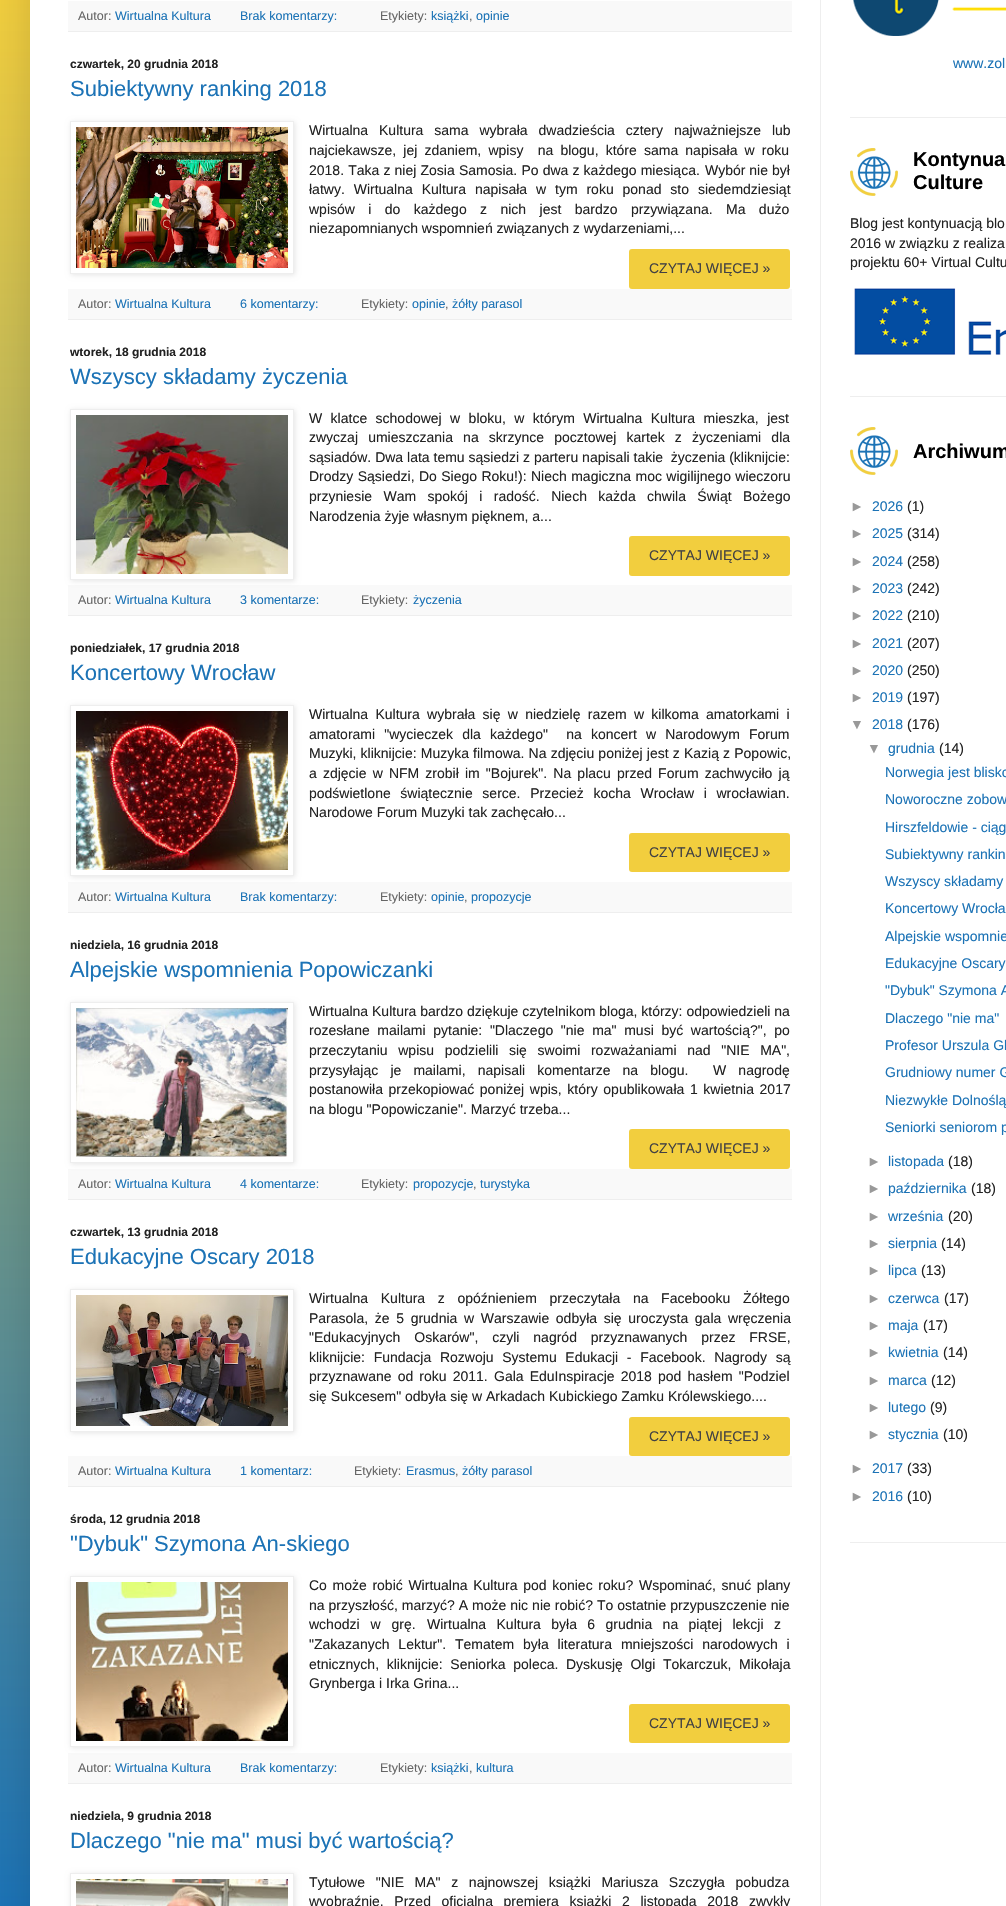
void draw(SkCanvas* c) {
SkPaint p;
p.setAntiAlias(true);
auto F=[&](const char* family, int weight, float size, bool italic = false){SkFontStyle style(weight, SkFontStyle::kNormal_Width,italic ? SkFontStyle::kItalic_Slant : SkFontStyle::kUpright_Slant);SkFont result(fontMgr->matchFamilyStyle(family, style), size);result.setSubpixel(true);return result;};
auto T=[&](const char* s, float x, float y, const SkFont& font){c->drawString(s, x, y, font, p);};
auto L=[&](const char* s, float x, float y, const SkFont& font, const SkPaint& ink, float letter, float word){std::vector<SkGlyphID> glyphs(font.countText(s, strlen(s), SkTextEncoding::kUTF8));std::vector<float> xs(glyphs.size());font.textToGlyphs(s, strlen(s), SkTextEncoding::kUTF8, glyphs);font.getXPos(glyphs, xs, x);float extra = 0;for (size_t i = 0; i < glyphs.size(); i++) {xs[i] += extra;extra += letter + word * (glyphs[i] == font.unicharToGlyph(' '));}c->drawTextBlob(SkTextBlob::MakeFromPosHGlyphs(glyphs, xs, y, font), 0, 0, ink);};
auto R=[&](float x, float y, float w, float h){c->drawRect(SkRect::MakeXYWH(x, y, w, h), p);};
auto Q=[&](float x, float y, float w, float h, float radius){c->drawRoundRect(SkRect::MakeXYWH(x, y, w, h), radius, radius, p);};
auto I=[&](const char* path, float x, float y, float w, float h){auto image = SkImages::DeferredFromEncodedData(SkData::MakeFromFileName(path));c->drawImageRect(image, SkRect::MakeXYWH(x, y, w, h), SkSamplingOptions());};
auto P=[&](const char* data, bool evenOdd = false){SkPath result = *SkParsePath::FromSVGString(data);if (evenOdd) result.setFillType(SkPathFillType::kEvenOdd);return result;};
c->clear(0xffffffff);
{
const SkColor colors[] = {0xfff2ce3e,0xff1c73b6};
const float stops[] = {0,1};
const SkPoint ends[] = {{503,0}, {503,1906}};
p.setShader(SkGradientShader::MakeLinear(ends, colors, stops, 2, SkTileMode::kClamp));
p.setAlpha(255);
}
R(0,0,30,1906);
p.setShader(nullptr);
p.setColor(0x26000000);
p.setMaskFilter(SkMaskFilter::MakeBlur(kNormal_SkBlurStyle, 20));
c->drawRect(SkRect::MakeXYWH(30,-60,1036,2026),p);
p.setMaskFilter(nullptr);
p.setColor(0xffffffff);
R(30,0,976,1906);
p.setColor(0xffeeeeee);
R(820,0,1,1906);
p.setColor(0xfff9f9f9);
R(68,1,724,30);
p.setColor(0xffeeeeee);
R(68,31,724,1);
auto f1 = F("Liberation Sans",400,12.5);
p.setColor(0xff666666);
T("Autor:",78,20,f1);
p.setColor(0xff1c73b6);
T("Wirtualna Kultura",115,20,f1);
T("Brak komentarzy:",240,20,f1);
p.setColor(0xff666666);
T("Etykiety:",380,20,f1);
p.setColor(0xff1c73b6);
T("książki",431,20,f1);
p.setColor(0xff666666);
T(",",469,20,f1);
p.setColor(0xff1c73b6);
T("opinie",476,20,f1);
auto f2 = F("Liberation Sans",700,12);
p.setColor(0xff222222);
T("czwartek, 20 grudnia 2018",70,68,f2);
auto f3 = F("Liberation Sans",400,22);
p.setColor(0xff1c73b6);
T("Subiektywny ranking 2018",70,96,f3);
c->save();
c->clipPath(P("M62 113h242v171h-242zm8 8h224v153h-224z",true),true);
p.setColor(0x1a000000);
p.setMaskFilter(SkMaskFilter::MakeBlur(kNormal_SkBlurStyle, 2.5));
c->drawRect(SkRect::MakeXYWH(71,122,224,153),p);
p.setMaskFilter(nullptr);
c->restore();
p.setStroke(true);
p.setStrokeWidth(1);
p.setColor(0xffeeeeee);
c->drawRect(SkRect::MakeXYWH(70.5,121.5,223,152),p);
I("1.png",76,127,212,141);
auto f4 = F("Liberation Sans",400,14);
p.setStroke(false);
p.setColor(0xff222222);
L("Wirtualna Kultura sama wybrała dwadzieścia cztery najważniejsze lub",309,135,f4,p,0,7);
L("najciekawsze, jej zdaniem, wpisy  na blogu, które sama napisała w roku",309,155,f4,p,0,3.25);
L("2018. Taka z niej Zosia Samosia. Po dwa z każdego miesiąca.",309,175,f4,p,0,.25);
T("Wybór nie był",705,175,f4);
L("łatwy. Wirtualna Kultura napisała w tym roku ponad sto siedemdziesiąt",309,194,f4,p,0,5);
L("wpisów i do każdego z nich jest bardzo przywiązana. Ma dużo",309,214,f4,p,0,9.5);
T("niezapomnianych wspomnień związanych z wydarzeniami,...",309,233,f4);
p.setColor(0xfff2ce3e);
Q(629,249,161,40,3);
p.setColor(0xff424143);
T("CZYTAJ WIĘCEJ »",649,273,f4);
p.setColor(0xfff9f9f9);
R(68,289,724,30);
p.setColor(0xffeeeeee);
R(68,319,724,1);
p.setColor(0xff666666);
T("Autor:",78,308,f1);
p.setColor(0xff1c73b6);
T("Wirtualna Kultura",115,308,f1);
T("6 komentarzy:",240,308,f1);
p.setColor(0xff666666);
T("Etykiety:",361,308,f1);
p.setColor(0xff1c73b6);
T("opinie",412,308,f1);
p.setColor(0xff666666);
T(",",445,308,f1);
p.setColor(0xff1c73b6);
T("żółty parasol",452,308,f1);
p.setColor(0xff222222);
T("wtorek, 18 grudnia 2018",70,356,f2);
p.setColor(0xff1c73b6);
T("Wszyscy składamy życzenia",70,384,f3);
p.setColor(0xfff9f9f9);
R(68,585,724,30);
c->save();
c->clipPath(P("M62 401h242v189h-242zm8 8h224v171h-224z",true),true);
p.setColor(0x1a000000);
p.setMaskFilter(SkMaskFilter::MakeBlur(kNormal_SkBlurStyle, 2.5));
c->drawRect(SkRect::MakeXYWH(71,410,224,171),p);
p.setMaskFilter(nullptr);
c->restore();
p.setStroke(true);
p.setColor(0xffeeeeee);
c->drawRect(SkRect::MakeXYWH(70.5,409.5,223,170),p);
I("2.png",76,415,212,159);
p.setStroke(false);
p.setColor(0xff222222);
L("W klatce schodowej w bloku, w którym Wirtualna Kultura mieszka, jest",309,423,f4,p,0,4.5);
L("zwyczaj umieszczania na skrzynce pocztowej kartek z życzeniami dla",309,442,f4,p,0,6.25);
T("sąsiadów. Dwa lata temu sąsiedzi z parteru napisali takie  życzenia (kliknijcie:",309,462,f4);
L("Drodzy Sąsiedzi, Do Siego Roku!):",309,481,f4,p,0,.5);
L("Niech magiczna moc wigilijnego wieczoru",531,481,f4,p,0,.5);
L("przyniesie Wam spokój i radość. Niech każda chwila Świąt Bożego",309,501,f4,p,0,7.5);
T("Narodzenia żyje własnym pięknem, a...",309,521,f4);
p.setColor(0xfff2ce3e);
Q(629,536,161,40,3);
p.setColor(0xff424143);
T("CZYTAJ WIĘCEJ »",649,560,f4);
p.setColor(0xffeeeeee);
R(68,615,724,1);
p.setColor(0xff666666);
T("Autor:",78,604,f1);
p.setColor(0xff1c73b6);
T("Wirtualna Kultura",115,604,f1);
T("3 komentarze:",240,604,f1);
p.setColor(0xff666666);
T("Etykiety:",361,604,f1);
p.setColor(0xff1c73b6);
T("życzenia",413,604,f1);
p.setColor(0xff222222);
T("poniedziałek, 17 grudnia 2018",70,652,f2);
p.setColor(0xff1c73b6);
T("Koncertowy Wrocław",70,680,f3);
p.setColor(0xfff9f9f9);
R(68,882,724,30);
c->save();
c->clipPath(P("M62 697h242v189h-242zm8 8h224v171h-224z",true),true);
p.setColor(0x1a000000);
p.setMaskFilter(SkMaskFilter::MakeBlur(kNormal_SkBlurStyle, 2.5));
c->drawRect(SkRect::MakeXYWH(71,706,224,171),p);
p.setMaskFilter(nullptr);
c->restore();
p.setStroke(true);
p.setColor(0xffeeeeee);
c->drawRect(SkRect::MakeXYWH(70.5,705.5,223,170),p);
I("3.png",76,711,212,159);
p.setStroke(false);
p.setColor(0xff222222);
L("Wirtualna Kultura wybrała się w niedzielę razem w kilkoma amatorkami i",309,719,f4,p,0,3.4);
L("amatorami \"wycieczek dla każdego\"  na koncert w Narodowym Forum",309,739,f4,p,0,5.25);
L("Muzyki, kliknijcie: Muzyka filmowa. Na zdjęciu poniżej jest z Kazią z Popowic,",309,758,f4,p,0,.25);
L("a zdjęcie w NFM zrobił im \"Bojurek\". Na placu przed Forum zachwyciło ją",309,778,f4,p,0,2.25);
L("podświetlone świątecznie serce. Przecież kocha Wrocław i wrocławian.",309,798,f4,p,0,5.75);
T("Narodowe Forum Muzyki tak zachęcało...",309,817,f4);
p.setColor(0xfff2ce3e);
Q(629,833,161,39,3);
p.setColor(0xff424143);
T("CZYTAJ WIĘCEJ »",649,857,f4);
p.setColor(0xffeeeeee);
R(68,912,724,1);
p.setColor(0xff666666);
T("Autor:",78,901,f1);
p.setColor(0xff1c73b6);
T("Wirtualna Kultura",115,901,f1);
T("Brak komentarzy:",240,901,f1);
p.setColor(0xff666666);
T("Etykiety:",380,901,f1);
p.setColor(0xff1c73b6);
T("opinie",431,901,f1);
p.setColor(0xff666666);
T(",",464,901,f1);
p.setColor(0xff1c73b6);
T("propozycje",471,901,f1);
p.setColor(0xff222222);
T("niedziela, 16 grudnia 2018",70,949,f2);
p.setColor(0xff1c73b6);
T("Alpejskie wspomnienia Popowiczanki",70,977,f3);
p.setColor(0xfff9f9f9);
R(68,1169,724,30);
c->save();
c->clipPath(P("M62 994h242v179h-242zm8 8h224v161h-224z",true),true);
p.setColor(0x1a000000);
p.setMaskFilter(SkMaskFilter::MakeBlur(kNormal_SkBlurStyle, 2.5));
c->drawRect(SkRect::MakeXYWH(71,1003,224,161),p);
p.setMaskFilter(nullptr);
c->restore();
p.setStroke(true);
p.setColor(0xffeeeeee);
c->drawRect(SkRect::MakeXYWH(70.5,1002.5,223,160),p);
I("4.png",76,1008,212,149);
p.setStroke(false);
p.setColor(0xff222222);
T("Wirtualna Kultura bardzo dziękuje czytelnikom bloga, którzy: odpowiedzieli na",309,1016,f4);
L("rozesłane mailami pytanie: \"Dlaczego \"nie ma\" musi być wartością?\", po",309,1035,f4,p,0,3.75);
L("przeczytaniu wpisu podzielili się swoimi rozważaniami nad \"NIE MA\",",309,1055,f4,p,0,6.75);
L("przysyłając je mailami, napisali komentarze na blogu.",309,1075,f4,p,0,8.25);
L("W nagrodę",713,1075,f4,p,0,8.25);
L("postanowiła przekopiować poniżej wpis, który opublikowała 1 kwietnia 2017",309,1094,f4,p,0,1.75);
T("na blogu \"Popowiczanie\". Marzyć trzeba...",309,1114,f4);
p.setColor(0xfff2ce3e);
Q(629,1129,161,40,3);
p.setColor(0xff424143);
T("CZYTAJ WIĘCEJ »",649,1153,f4);
p.setColor(0xffeeeeee);
R(68,1199,724,1);
p.setColor(0xff666666);
T("Autor:",78,1188,f1);
p.setColor(0xff1c73b6);
T("Wirtualna Kultura",115,1188,f1);
T("4 komentarze:",240,1188,f1);
p.setColor(0xff666666);
T("Etykiety:",361,1188,f1);
p.setColor(0xff1c73b6);
T("propozycje",413,1188,f1);
p.setColor(0xff666666);
T(",",473,1188,f1);
p.setColor(0xff1c73b6);
T("turystyka",480,1188,f1);
p.setColor(0xff222222);
T("czwartek, 13 grudnia 2018",70,1236,f2);
p.setColor(0xff1c73b6);
T("Edukacyjne Oscary 2018",70,1264,f3);
c->save();
c->clipPath(P("M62 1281h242v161h-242zm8 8h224v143h-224z",true),true);
p.setColor(0x1a000000);
p.setMaskFilter(SkMaskFilter::MakeBlur(kNormal_SkBlurStyle, 2.5));
c->drawRect(SkRect::MakeXYWH(71,1290,224,143),p);
p.setMaskFilter(nullptr);
c->restore();
p.setStroke(true);
p.setColor(0xffeeeeee);
c->drawRect(SkRect::MakeXYWH(70.5,1289.5,223,142),p);
I("5.png",76,1295,212,131);
p.setStroke(false);
p.setColor(0xff222222);
L("Wirtualna Kultura z opóźnieniem przeczytała na Facebooku Żółtego",309,1303,f4,p,0,8.75);
L("Parasola, że 5 grudnia w Warszawie odbyła się uroczysta gala wręczenia",309,1323,f4,p,0,2.75);
L("\"Edukacyjnych Oskarów\", czyli nagród przyznawanych przez FRSE,",309,1342,f4,p,0,10);
L("kliknijcie: Fundacja Rozwoju Systemu Edukacji - Facebook. Nagrody są",309,1362,f4,p,0,4.75);
L("przyznawane od roku 2011.",309,1381,f4,p,0,2.25);
L("Gala EduInspiracje 2018 pod hasłem \"Podziel",494,1381,f4,p,0,2.25);
T("się Sukcesem\" odbyła się w Arkadach Kubickiego Zamku Królewskiego....",309,1401,f4);
p.setColor(0xfff2ce3e);
Q(629,1417,161,39,3);
p.setColor(0xff424143);
T("CZYTAJ WIĘCEJ »",649,1441,f4);
p.setColor(0xfff9f9f9);
R(68,1456,724,30);
p.setColor(0xffeeeeee);
R(68,1486,724,1);
p.setColor(0xff666666);
T("Autor:",78,1475,f1);
p.setColor(0xff1c73b6);
T("Wirtualna Kultura",115,1475,f1);
T("1 komentarz:",240,1475,f1);
p.setColor(0xff666666);
T("Etykiety:",354,1475,f1);
p.setColor(0xff1c73b6);
T("Erasmus",406,1475,f1);
p.setColor(0xff666666);
T(",",455,1475,f1);
p.setColor(0xff1c73b6);
T("żółty parasol",462,1475,f1);
p.setColor(0xff222222);
T("środa, 12 grudnia 2018",70,1523,f2);
p.setColor(0xff1c73b6);
T("\"Dybuk\" Szymona An-skiego",70,1551,f3);
p.setColor(0xfff9f9f9);
R(68,1753,724,30);
c->save();
c->clipPath(P("M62 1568h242v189h-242zm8 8h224v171h-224z",true),true);
p.setColor(0x1a000000);
p.setMaskFilter(SkMaskFilter::MakeBlur(kNormal_SkBlurStyle, 2.5));
c->drawRect(SkRect::MakeXYWH(71,1577,224,171),p);
p.setMaskFilter(nullptr);
c->restore();
p.setStroke(true);
p.setColor(0xffeeeeee);
c->drawRect(SkRect::MakeXYWH(70.5,1576.5,223,170),p);
I("6.png",76,1582,212,159);
p.setStroke(false);
p.setColor(0xff222222);
L("Co może robić Wirtualna Kultura pod koniec roku? Wspominać, snuć plany",309,1590,f4,p,0,1.75);
L("na przyszłość, marzyć? A może nic nie robić? To ostatnie przypuszczenie nie",309,1610,f4,p,0,.1);
L("wchodzi w grę.",309,1629,f4,p,0,7);
L("Wirtualna Kultura była 6 grudnia na piątej lekcji z",427,1629,f4,p,0,6.5);
L("\"Zakazanych Lektur\". Tematem była literatura mniejszości narodowych i",309,1649,f4,p,0,5);
L("etnicznych, kliknijcie: Seniorka poleca. Dyskusję Olgi Tokarczuk, Mikołaja",309,1669,f4,p,0,3.75);
T("Grynberga i Irka Grina...",309,1688,f4);
p.setColor(0xfff2ce3e);
Q(629,1704,161,39,3);
p.setColor(0xff424143);
T("CZYTAJ WIĘCEJ »",649,1728,f4);
p.setColor(0xffeeeeee);
R(68,1783,724,1);
p.setColor(0xff666666);
T("Autor:",78,1772,f1);
p.setColor(0xff1c73b6);
T("Wirtualna Kultura",115,1772,f1);
T("Brak komentarzy:",240,1772,f1);
p.setColor(0xff666666);
T("Etykiety:",380,1772,f1);
p.setColor(0xff1c73b6);
T("książki",431,1772,f1);
p.setColor(0xff666666);
T(",",469,1772,f1);
p.setColor(0xff1c73b6);
T("kultura",476,1772,f1);
p.setColor(0xff222222);
T("niedziela, 9 grudnia 2018",70,1820,f2);
p.setColor(0xff1c73b6);
T("Dlaczego \"nie ma\" musi być wartością?",70,1848,f3);
c->save();
c->clipPath(P("M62 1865h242v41h-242zm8 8h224v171h-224z",true),true);
p.setColor(0x1a000000);
p.setMaskFilter(SkMaskFilter::MakeBlur(kNormal_SkBlurStyle, 2.5));
c->drawRect(SkRect::MakeXYWH(71,1874,224,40),p);
p.setMaskFilter(nullptr);
c->restore();
p.setStroke(true);
p.setColor(0xffeeeeee);
c->drawRect(SkRect::MakeXYWH(70.5,1873.5,223,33),p);
I("7.png",76,1879,212,27);
p.setStroke(false);
p.setColor(0xff222222);
L("Tytułowe \"NIE MA\" z najnowszej książki Mariusza Szczygła pobudza",309,1887,f4,p,0,6.75);
L("wyobraźnię. Przed oficjalną premierą książki 2 listopada 2018 zwykły",309,1906,f4,p,0,6.75);
p.setColor(0xffeeeeee);
R(850,117,156,1);
I("8.png",853,0,153,36);
p.setColor(0xff1c73b6);
T("www.zol",953,68,f4);
p.setColor(0xffeeeeee);
R(850,396,156,1);
I("9.png",850,148,48,48);
auto f5 = F("Liberation Sans",700,20);
p.setColor(0xff000000);
T("Kontynua",913,166,f5);
T("Culture",913,189,f5);
p.setColor(0xff222222);
T("Blog jest kontynuacją blo",850,228,f4);
T("2016 w związku z realiza",850,248,f4);
T("projektu 60+ Virtual Cultu",850,267,f4);
I("10.png",854,288,152,67);
p.setColor(0xffeeeeee);
R(850,1542,156,1);
I("9.png",850,427,48,48);
p.setColor(0xff000000);
T("Archiwum",913,458,f5);
p.setColor(0xff999999);
T("►",850,511,f4);
p.setColor(0xff1c73b6);
T("2026",872,511,f4);
p.setColor(0xff222222);
T("(1)",907,511,f4);
p.setColor(0xff999999);
T("►",850,538,f4);
p.setColor(0xff1c73b6);
T("2025",872,538,f4);
p.setColor(0xff222222);
T("(314)",907,538,f4);
p.setColor(0xff999999);
T("►",850,566,f4);
p.setColor(0xff1c73b6);
T("2024",872,566,f4);
p.setColor(0xff222222);
T("(258)",907,566,f4);
p.setColor(0xff999999);
T("►",850,593,f4);
p.setColor(0xff1c73b6);
T("2023",872,593,f4);
p.setColor(0xff222222);
T("(242)",907,593,f4);
p.setColor(0xff999999);
T("►",850,620,f4);
p.setColor(0xff1c73b6);
T("2022",872,620,f4);
p.setColor(0xff222222);
T("(210)",907,620,f4);
p.setColor(0xff999999);
T("►",850,648,f4);
p.setColor(0xff1c73b6);
T("2021",872,648,f4);
p.setColor(0xff222222);
T("(207)",907,648,f4);
p.setColor(0xff999999);
T("►",850,675,f4);
p.setColor(0xff1c73b6);
T("2020",872,675,f4);
p.setColor(0xff222222);
T("(250)",907,675,f4);
p.setColor(0xff999999);
T("►",850,702,f4);
p.setColor(0xff1c73b6);
T("2019",872,702,f4);
p.setColor(0xff222222);
T("(197)",907,702,f4);
p.setColor(0xff999999);
T("▼",850,729,f4);
p.setColor(0xff1c73b6);
T("2018",872,729,f4);
p.setColor(0xff222222);
T("(176)",907,729,f4);
p.setColor(0xff999999);
T("▼",867,753,f4);
p.setColor(0xff1c73b6);
T("grudnia",888,753,f4);
p.setColor(0xff222222);
T("(14)",939,753,f4);
p.setColor(0xff1c73b6);
T("Norwegia jest blisko",885,777,f4);
T("Noworoczne zobow",885,804,f4);
T("Hirszfeldowie - ciąg",885,832,f4);
T("Subiektywny rankin",885,859,f4);
T("Wszyscy składamy",885,886,f4);
T("Koncertowy Wrocła",885,913,f4);
T("Alpejskie wspomnie",885,941,f4);
T("Edukacyjne Oscary",885,968,f4);
T("\"Dybuk\" Szymona A",885,995,f4);
T("Dlaczego \"nie ma\"",885,1023,f4);
T("Profesor Urszula Gl",885,1050,f4);
T("Grudniowy numer G",885,1077,f4);
T("Niezwykłe Dolnoślą",885,1105,f4);
T("Seniorki seniorom p",885,1132,f4);
p.setColor(0xff999999);
T("►",867,1166,f4);
p.setColor(0xff1c73b6);
T("listopada",888,1166,f4);
p.setColor(0xff222222);
T("(18)",948,1166,f4);
p.setColor(0xff999999);
T("►",867,1193,f4);
p.setColor(0xff1c73b6);
T("października",888,1193,f4);
p.setColor(0xff222222);
T("(18)",971,1193,f4);
p.setColor(0xff999999);
T("►",867,1221,f4);
p.setColor(0xff1c73b6);
T("września",888,1221,f4);
p.setColor(0xff222222);
T("(20)",948,1221,f4);
p.setColor(0xff999999);
T("►",867,1248,f4);
p.setColor(0xff1c73b6);
T("sierpnia",888,1248,f4);
p.setColor(0xff222222);
T("(14)",941,1248,f4);
p.setColor(0xff999999);
T("►",867,1275,f4);
p.setColor(0xff1c73b6);
T("lipca",888,1275,f4);
p.setColor(0xff222222);
T("(13)",921,1275,f4);
p.setColor(0xff999999);
T("►",867,1303,f4);
p.setColor(0xff1c73b6);
T("czerwca",888,1303,f4);
p.setColor(0xff222222);
T("(17)",944,1303,f4);
p.setColor(0xff999999);
T("►",867,1330,f4);
p.setColor(0xff1c73b6);
T("maja",888,1330,f4);
p.setColor(0xff222222);
T("(17)",923,1330,f4);
p.setColor(0xff999999);
T("►",867,1357,f4);
p.setColor(0xff1c73b6);
T("kwietnia",888,1357,f4);
p.setColor(0xff222222);
T("(14)",943,1357,f4);
p.setColor(0xff999999);
T("►",867,1385,f4);
p.setColor(0xff1c73b6);
T("marca",888,1385,f4);
p.setColor(0xff222222);
T("(12)",931,1385,f4);
p.setColor(0xff999999);
T("►",867,1412,f4);
p.setColor(0xff1c73b6);
T("lutego",888,1412,f4);
p.setColor(0xff222222);
T("(9)",930,1412,f4);
p.setColor(0xff999999);
T("►",867,1439,f4);
p.setColor(0xff1c73b6);
T("stycznia",888,1439,f4);
p.setColor(0xff222222);
T("(10)",943,1439,f4);
p.setColor(0xff999999);
T("►",850,1473,f4);
p.setColor(0xff1c73b6);
T("2017",872,1473,f4);
p.setColor(0xff222222);
T("(33)",907,1473,f4);
p.setColor(0xff999999);
T("►",850,1501,f4);
p.setColor(0xff1c73b6);
T("2016",872,1501,f4);
p.setColor(0xff222222);
T("(10)",907,1501,f4);
}
